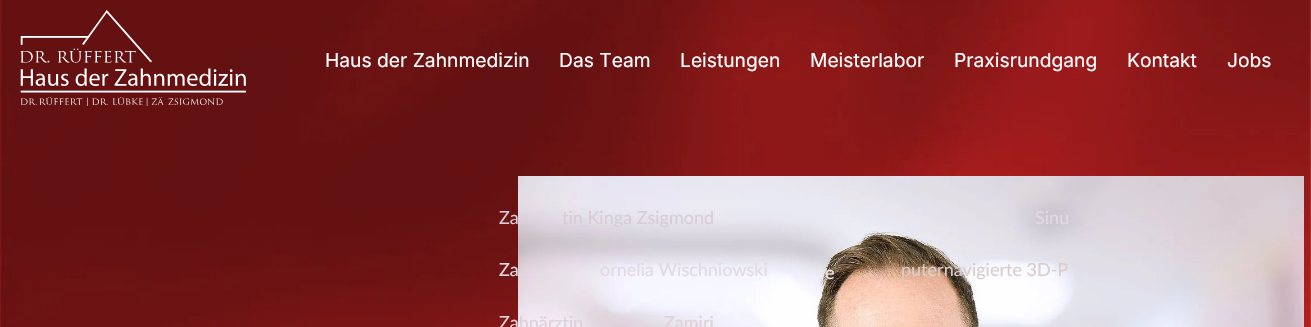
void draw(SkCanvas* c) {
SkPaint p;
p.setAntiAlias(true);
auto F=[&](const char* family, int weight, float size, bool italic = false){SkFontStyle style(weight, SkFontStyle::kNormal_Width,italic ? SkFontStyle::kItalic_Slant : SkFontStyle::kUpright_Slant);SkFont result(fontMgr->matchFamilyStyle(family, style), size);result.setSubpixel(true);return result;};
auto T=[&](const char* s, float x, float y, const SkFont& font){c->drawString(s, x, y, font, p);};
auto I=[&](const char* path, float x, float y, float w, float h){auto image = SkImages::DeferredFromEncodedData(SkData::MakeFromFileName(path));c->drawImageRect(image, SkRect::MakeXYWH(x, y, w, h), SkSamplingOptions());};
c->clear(0xffffffff);
I("1.png",0,0,1311,327);
I("2.png",20,10,226,96);
auto f1 = F("Inter",400,19.25);
p.setColor(0xffffffff);
T("Haus der Zahnmedizin",325,67,f1);
T("Leistungen",680,67,f1);
I("3.png",518,176,786,151);
auto f2 = F("Lato",400,18);
p.setColor(0xffeae7f0);
T("e",825,279,f2);
p.setColor(0xffe3d9e3);
T("Sinu",1035,224,f2);
p.setColor(0xffdacdcc);
T("puternavigierte 3D-P",901,276,f2);
p.setColor(0xffffffff);
T("Das Team",559,67,f1);
p.setColor(0xffd8ccd5);
T("Za",499,224,f2);
T("tin Kinga Zsigmond",562,224,f2);
p.setColor(0xffe3d9e3);
T("Za",499,276,f2);
T("ornelia Wischniowski",600,276,f2);
p.setColor(0xffe0d0d9);
T("Zahnärztin",499,329,f2);
T("Zamiri",664,329,f2);
p.setColor(0xffffffff);
T("Meisterlabor",810,67,f1);
T("Praxisrundgang",954,67,f1);
T("Kontakt",1127,67,f1);
T("Jobs",1227,67,f1);
}
